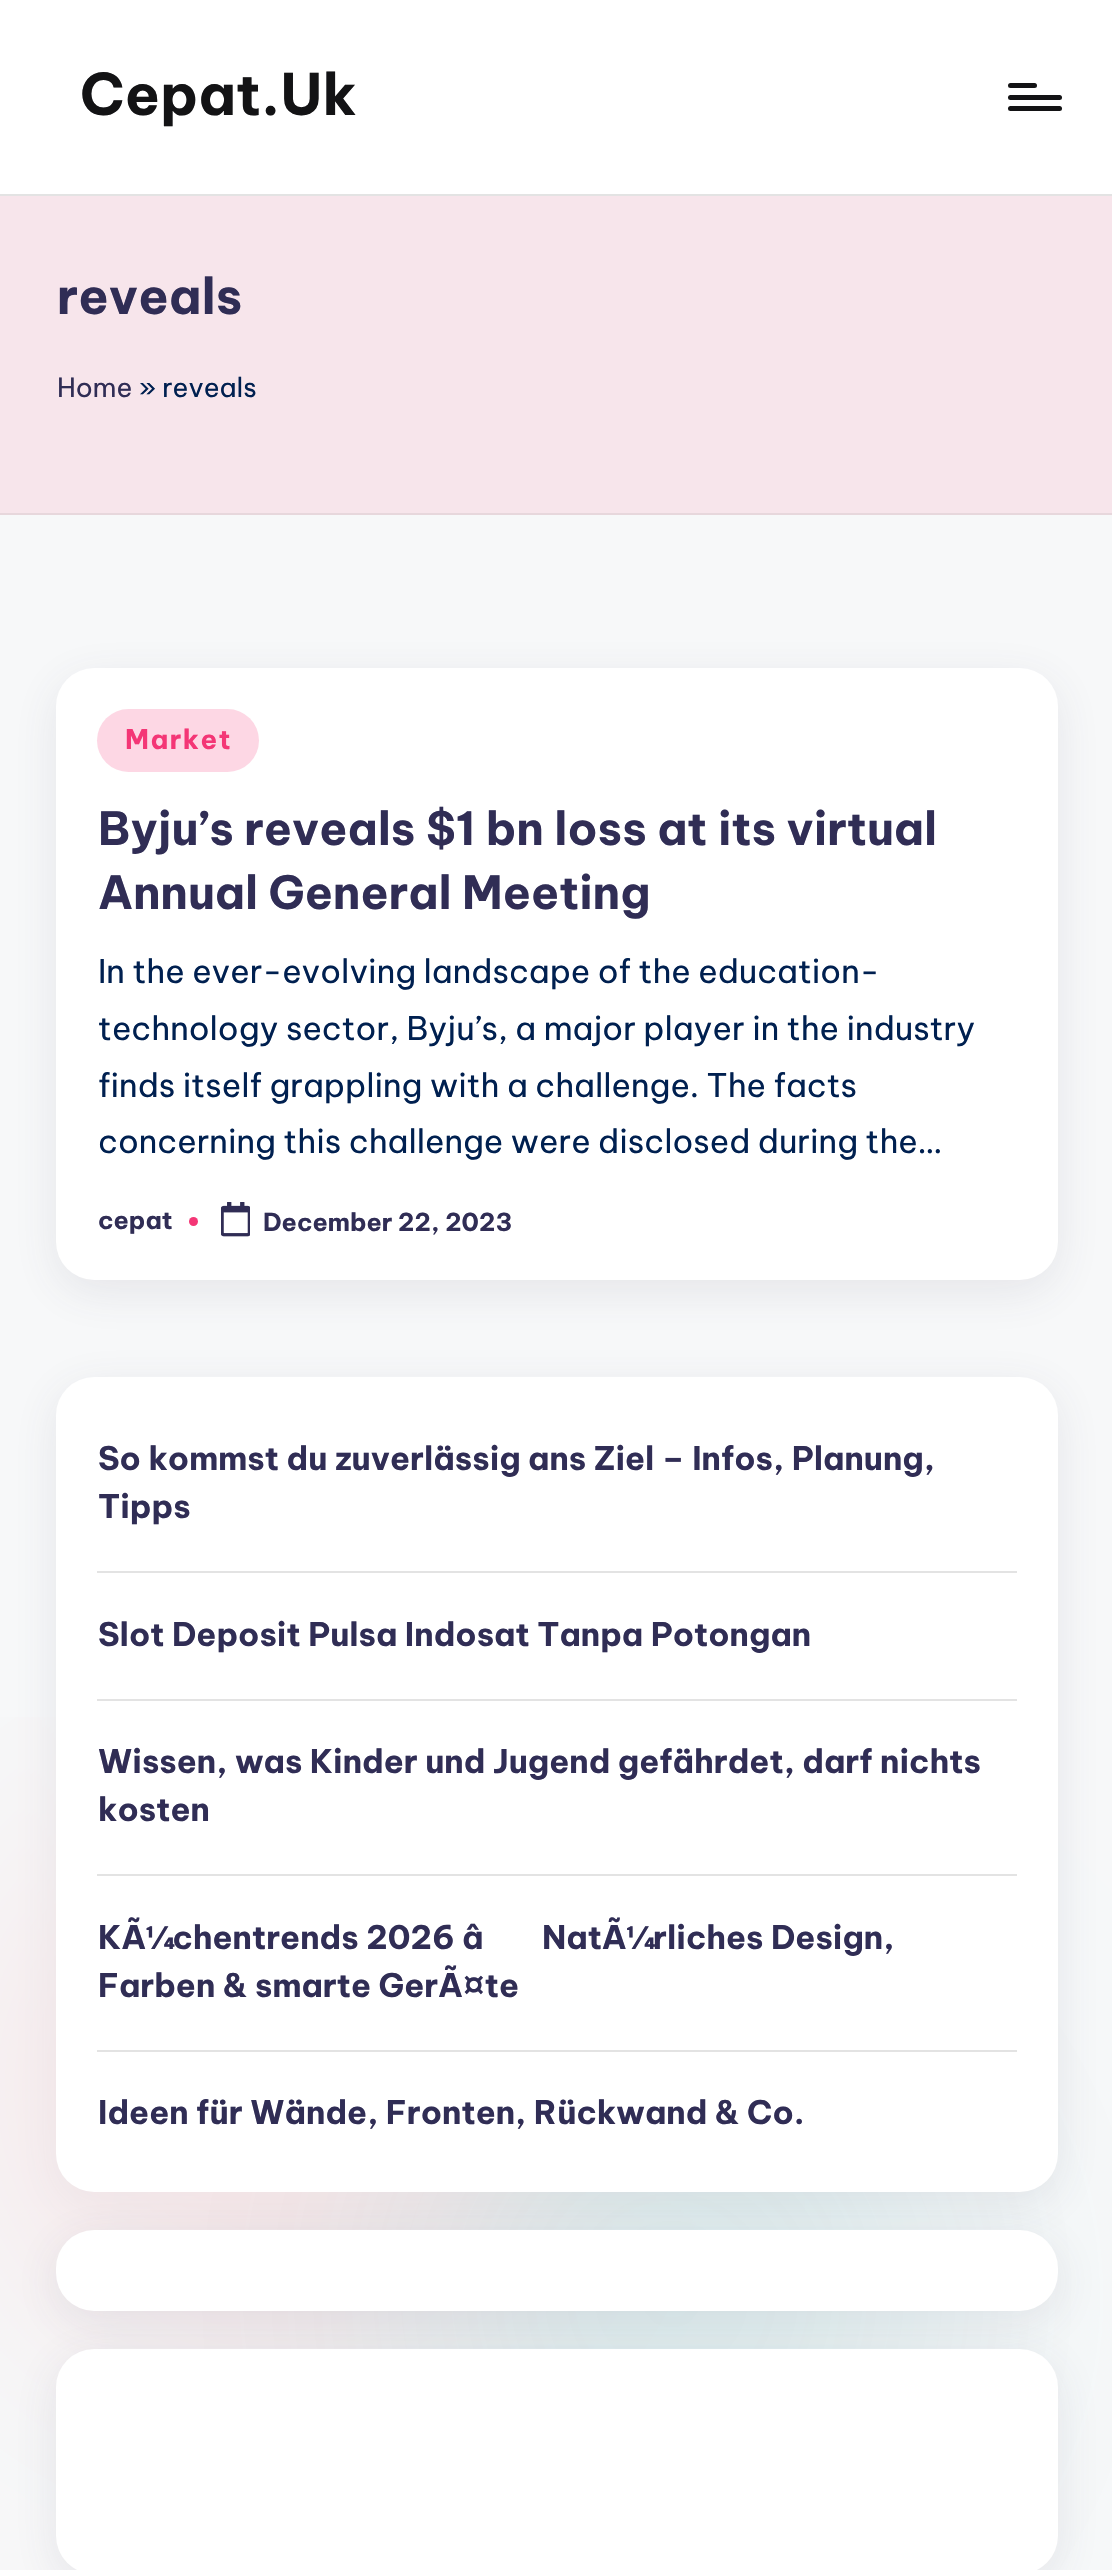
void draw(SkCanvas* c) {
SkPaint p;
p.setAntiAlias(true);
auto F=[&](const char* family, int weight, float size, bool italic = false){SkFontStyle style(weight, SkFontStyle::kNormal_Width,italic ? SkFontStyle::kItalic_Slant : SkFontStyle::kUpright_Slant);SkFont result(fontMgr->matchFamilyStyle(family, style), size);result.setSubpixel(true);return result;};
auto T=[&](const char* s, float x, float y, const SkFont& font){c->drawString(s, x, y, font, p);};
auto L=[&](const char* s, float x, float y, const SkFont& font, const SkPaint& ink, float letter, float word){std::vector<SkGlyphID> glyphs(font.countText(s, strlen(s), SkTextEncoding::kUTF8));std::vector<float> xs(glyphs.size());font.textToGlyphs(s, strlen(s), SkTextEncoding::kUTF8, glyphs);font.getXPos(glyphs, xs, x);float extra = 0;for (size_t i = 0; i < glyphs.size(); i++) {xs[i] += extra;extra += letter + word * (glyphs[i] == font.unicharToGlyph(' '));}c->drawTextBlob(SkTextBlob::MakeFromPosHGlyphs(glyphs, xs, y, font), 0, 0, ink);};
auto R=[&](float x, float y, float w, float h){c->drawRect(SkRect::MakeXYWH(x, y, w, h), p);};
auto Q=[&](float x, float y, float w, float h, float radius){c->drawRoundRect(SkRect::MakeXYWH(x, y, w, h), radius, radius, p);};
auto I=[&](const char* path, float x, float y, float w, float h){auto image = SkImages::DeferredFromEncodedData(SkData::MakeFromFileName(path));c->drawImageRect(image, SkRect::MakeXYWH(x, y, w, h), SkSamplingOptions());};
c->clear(0xfff7f8f9);
p.setColor(0xffffffff);
R(0,0,1112,194);
p.setColor(0xffe3e3e3);
R(0,194,1112,2);
auto f1 = F("Be Vietnam Pro",700,57.25);
p.setColor(0xff131315);
T("Cepat.Uk",80,115,f1);
Q(1008,95,54,5,2.5);
Q(1008,83,29,5,2.5);
Q(1008,106,54,5,2.5);
p.setColor(0xfff7e5eb);
R(0,196,1112,317);
p.setColor(0xffe7d7dc);
R(0,513,1112,2);
auto f2 = F("Be Vietnam Pro",700,49.5);
p.setColor(0xff302d55);
T("reveals",57,314,f2);
auto f3 = F("Be Vietnam Pro",400,26.5);
T("Home",57,397,f3);
p.setColor(0xff002050);
T("» reveals",139,397,f3);
p.setColor(0x1a454360);
p.setMaskFilter(SkMaskFilter::MakeBlur(kNormal_SkBlurStyle, 22.5));
c->drawRoundRect(SkRect::MakeXYWH(56,680,1002,612),38,38,p);
p.setMaskFilter(nullptr);
p.setColor(0xffffffff);
Q(56,668,1002,612,38);
p.setColor(0xfffdd7e4);
Q(97,709,162,63,31.5);
auto f4 = F("Be Vietnam Pro",700,27);
p.setColor(0xfff43676);
L("Market",125,749,f4,p,1.5,0);
auto f5 = F("Be Vietnam Pro",700,45.75);
p.setColor(0xff302d55);
T("Byju’s reveals $1 bn loss at its virtual",98,845,f5);
T("Annual General Meeting",98,909,f5);
auto f6 = F("Be Vietnam Pro",400,32.45);
p.setColor(0xff002050);
T("In the ever-evolving landscape of the education-",98,983,f6);
T("technology sector, Byju’s, a major player in the industry",98,1040,f6);
T("finds itself grappling with a challenge. The facts",98,1097,f6);
T("concerning this challenge were disclosed during the…",98,1153,f6);
auto f7 = F("Be Vietnam Pro",700,24.75);
p.setColor(0xff302d55);
T("cepat",98,1229,f7);
p.setColor(0xfff43676);
c->drawCircle(193.5,1221.5,4.5,p);
I("1.png",221,1202,29,35);
p.setColor(0xff302d55);
T("December 22, 2023",263,1231,f7);
p.setColor(0x1a454360);
p.setMaskFilter(SkMaskFilter::MakeBlur(kNormal_SkBlurStyle, 22.5));
c->drawRoundRect(SkRect::MakeXYWH(56,1388,1002,815),38,38,p);
p.setMaskFilter(nullptr);
c->save();
c->clipRect(SkRect::MakeXYWH(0,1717,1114,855));
p.setColor(0xfff6e4e6);
p.setMaskFilter(SkMaskFilter::MakeBlur(kNormal_SkBlurStyle, 144));
c->drawRoundRect(SkRect::MakeXYWH(0,1814,549,549),274.5,274.5,p);
p.setMaskFilter(nullptr);
c->restore();
p.setColor(0x1a04868b);
p.setMaskFilter(SkMaskFilter::MakeBlur(kNormal_SkBlurStyle, 144));
c->drawRoundRect(SkRect::MakeXYWH(396,2023,551,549),274.5,274.5,p);
p.setMaskFilter(nullptr);
p.setColor(0xffffffff);
Q(56,1377,1002,815,38);
auto f8 = F("Be Vietnam Pro",700,32.45);
p.setColor(0xff302d55);
T("So kommst du zuverlässig ans Ziel – Infos, Planung,",98,1470,f8);
T("Tipps",98,1518,f8);
p.setColor(0xffe3e3e3);
R(97,1571,920,2);
p.setColor(0xff302d55);
T("Slot Deposit Pulsa Indosat Tanpa Potongan",98,1646,f8);
p.setColor(0xffe3e3e3);
R(97,1699,920,2);
p.setColor(0xff302d55);
T("Wissen, was Kinder und Jugend gefährdet, darf nichts",98,1773,f8);
T("kosten",98,1821,f8);
p.setColor(0xffe3e3e3);
R(97,1874,920,2);
p.setColor(0xff302d55);
T("KÃ¼chentrends 2026 â",98,1949,f8);
T("NatÃ¼rliches Design,",542,1949,f8);
T("Farben & smarte GerÃ¤te",98,1997,f8);
p.setColor(0xffe3e3e3);
R(97,2050,920,2);
p.setColor(0xff302d55);
T("Ideen für Wände, Fronten, Rückwand & Co.",98,2124,f8);
p.setColor(0x1a454360);
p.setMaskFilter(SkMaskFilter::MakeBlur(kNormal_SkBlurStyle, 22.5));
c->drawRoundRect(SkRect::MakeXYWH(56,2241,1002,81),38,38,p);
p.setMaskFilter(nullptr);
p.setColor(0xffffffff);
Q(56,2230,1002,81,38);
p.setColor(0x1a454360);
p.setMaskFilter(SkMaskFilter::MakeBlur(kNormal_SkBlurStyle, 22.5));
c->drawRoundRect(SkRect::MakeXYWH(56,2360,1002,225),38,38,p);
p.setMaskFilter(nullptr);
p.setColor(0xffffffff);
Q(56,2349,1002,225,38);
}
